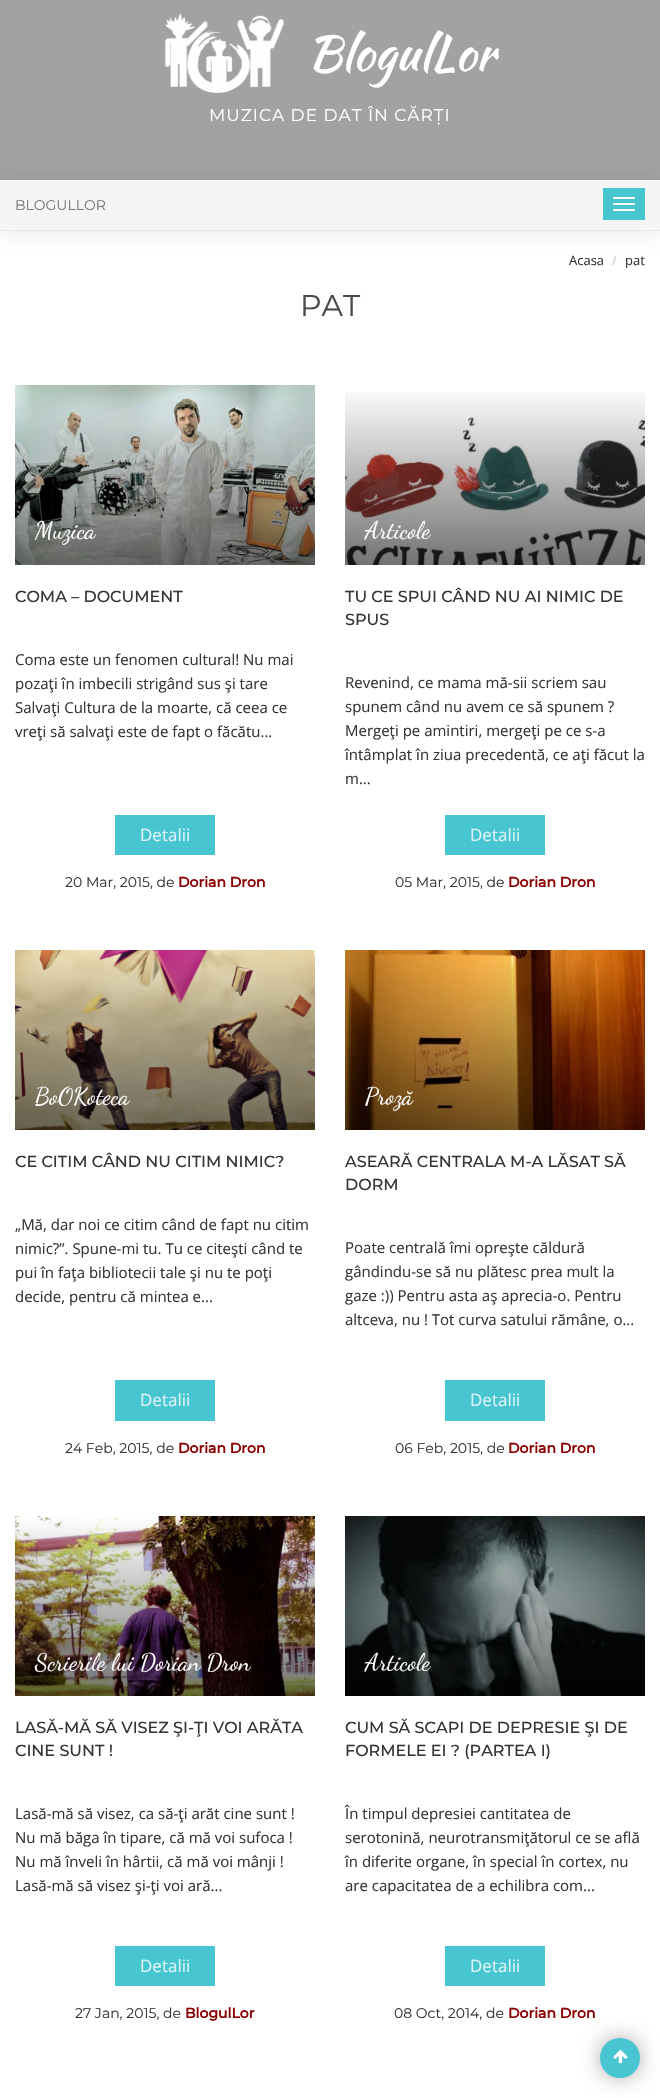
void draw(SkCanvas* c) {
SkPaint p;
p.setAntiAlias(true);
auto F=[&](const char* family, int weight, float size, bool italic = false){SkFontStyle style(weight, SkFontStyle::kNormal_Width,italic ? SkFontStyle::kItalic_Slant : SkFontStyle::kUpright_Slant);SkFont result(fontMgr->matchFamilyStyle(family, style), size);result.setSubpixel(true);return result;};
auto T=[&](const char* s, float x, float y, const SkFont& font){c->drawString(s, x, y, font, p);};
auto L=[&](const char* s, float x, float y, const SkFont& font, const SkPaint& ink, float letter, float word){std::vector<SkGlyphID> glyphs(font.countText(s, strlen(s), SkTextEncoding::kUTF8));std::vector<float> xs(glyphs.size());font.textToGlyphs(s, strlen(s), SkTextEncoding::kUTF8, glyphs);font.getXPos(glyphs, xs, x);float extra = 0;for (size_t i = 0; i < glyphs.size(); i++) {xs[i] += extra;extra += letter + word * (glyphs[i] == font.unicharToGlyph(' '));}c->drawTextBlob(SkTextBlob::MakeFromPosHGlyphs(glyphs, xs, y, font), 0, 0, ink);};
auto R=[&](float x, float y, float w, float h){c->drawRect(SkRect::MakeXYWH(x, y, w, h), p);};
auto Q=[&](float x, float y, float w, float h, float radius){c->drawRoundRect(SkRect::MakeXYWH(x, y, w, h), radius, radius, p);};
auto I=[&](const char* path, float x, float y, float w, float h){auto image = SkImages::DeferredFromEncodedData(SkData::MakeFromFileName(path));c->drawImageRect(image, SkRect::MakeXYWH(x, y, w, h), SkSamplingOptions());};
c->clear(0xffffffff);
p.setColor(0x1a000000);
p.setMaskFilter(SkMaskFilter::MakeBlur(kNormal_SkBlurStyle, 10));
c->drawRect(SkRect::MakeXYWH(0,181,660,51),p);
p.setMaskFilter(nullptr);
p.setColor(0x66171717);
R(0,0,660,180);
I("1.png",164,13,121,80);
auto f1 = F("Kaushan Script",400,48);
p.setColor(0xffffffff);
T("BlogulLor",307,70,f1);
auto f2 = F("Montserrat",400,17);
L("MUZICA DE DAT ÎN CĂRȚI",209,121,f2,p,1,0);
p.setColor(0xfff5f5f5);
R(0,180,660,50);
p.setColor(0xffe8e8e8);
R(0,230,660,1);
auto f3 = F("Montserrat",400,14);
p.setColor(0xff777777);
T("BLOGULLOR",15,210,f3);
p.setColor(0xff47c5d0);
R(603,188,42,32);
p.setColor(0xffffffff);
Q(613,197,22,2,1);
Q(613,203,22,2,1);
Q(613,209,22,2,1);
auto f4 = F("Open Sans",400,13);
p.setColor(0xff353535);
T("Acasa",569,265,f4);
p.setColor(0xffcccccc);
T("/",612,265,f4);
p.setColor(0xff353535);
T("pat",625,265,f4);
auto f5 = F("Montserrat",400,30);
p.setColor(0xff4a4a4a);
T("PAT",300,316,f5);
I("2.png",15,385,300,180);
auto f6 = F("Dancing Script",400,24);
p.setColor(0xffffffff);
T("Muzica",35,538,f6);
auto f7 = F("Montserrat",500,16);
p.setColor(0xff353535);
T("COMA – DOCUMENT",15,602,f7);
auto f8 = F("Open Sans",400,15);
T("Coma este un fenomen cultural! Nu mai",15,665,f8);
T("pozaţi în imbecili strigând sus şi tare",15,689,f8);
T("Salvaţi Cultura de la moarte, că ceea ce",15,713,f8);
T("vreţi să salvaţi este de fapt o făcătu...",15,737,f8);
p.setColor(0xff47c5d0);
R(115,815,100,40);
auto f9 = F("Open Sans",400,17);
p.setColor(0xffdaf3f6);
T("Detalii",140,841,f9);
p.setColor(0xff353535);
T("20 Mar, 2015, de",65,887,f3);
auto f10 = F("Montserrat",700,14);
p.setColor(0xff8b0000);
T("Dorian Dron",178,887,f10);
I("3.png",345,415,300,150);
{
const SkColor colors[] = {0x00000000,0x8c000000};
const float stops[] = {0,1};
const SkPoint ends[] = {{495,385}, {495,565}};
p.setShader(SkGradientShader::MakeLinear(ends, colors, stops, 2, SkTileMode::kClamp));
p.setAlpha(255);
}
R(345,392,300,173);
p.setShader(nullptr);
p.setColor(0xffffffff);
T("Articole",365,538,f6);
p.setColor(0xff353535);
T("TU CE SPUI CÂND NU AI NIMIC DE",345,602,f7);
T("SPUS",345,625,f7);
T("Revenind, ce mama mă-sii scriem sau",345,688,f8);
T("spunem când nu avem ce să spunem ?",345,712,f8);
T("Mergeţi pe amintiri, mergeţi pe ce s-a",345,736,f8);
T("întâmplat în ziua precedentă, ce aţi făcut la",345,760,f8);
T("m...",345,784,f8);
p.setColor(0xff47c5d0);
R(445,815,100,40);
p.setColor(0xffdaf3f6);
T("Detalii",470,841,f9);
p.setColor(0xff353535);
T("05 Mar, 2015, de",395,887,f3);
p.setColor(0xff8b0000);
T("Dorian Dron",508,887,f10);
I("4.png",15,950,300,180);
p.setColor(0xffffffff);
T("BoOKoteca",35,1104,f6);
p.setColor(0xff353535);
T("CE CITIM CÂND NU CITIM NIMIC?",15,1167,f7);
T("„Mă, dar noi ce citim când de fapt nu citim",15,1230,f8);
T("nimic?”. Spune-mi tu. Tu ce citeşti când te",15,1254,f8);
T("pui în faţa bibliotecii tale şi nu te poţi",15,1278,f8);
T("decide, pentru că mintea e...",15,1302,f8);
p.setColor(0xff47c5d0);
R(115,1380,100,41);
p.setColor(0xffdaf3f6);
T("Detalii",140,1406,f9);
p.setColor(0xff353535);
T("24 Feb, 2015, de",65,1453,f3);
p.setColor(0xff8b0000);
T("Dorian Dron",178,1453,f10);
I("5.png",345,950,300,180);
p.setColor(0xffffffff);
T("Proză",365,1104,f6);
p.setColor(0xff353535);
T("ASEARĂ CENTRALA M-A LĂSAT SĂ",345,1167,f7);
T("DORM",345,1190,f7);
T("Poate centrală îmi opreşte căldură",345,1253,f8);
T("gândindu-se să nu plătesc prea mult la",345,1277,f8);
T("gaze :)) Pentru asta aş aprecia-o. Pentru",345,1301,f8);
T("altceva, nu ! Tot curva satului rămâne, o...",345,1325,f8);
p.setColor(0xff47c5d0);
R(445,1380,100,41);
p.setColor(0xffdaf3f6);
T("Detalii",470,1406,f9);
p.setColor(0xff353535);
T("06 Feb, 2015, de",395,1453,f3);
p.setColor(0xff8b0000);
T("Dorian Dron",508,1453,f10);
I("6.png",15,1516,300,180);
p.setColor(0xffffffff);
T("Scrierile lui Dorian Dron",35,1670,f6);
p.setColor(0xff353535);
T("LASĂ-MĂ SĂ VISEZ ŞI-ŢI VOI ARĂTA",15,1733,f7);
T("CINE SUNT !",15,1756,f7);
T("Lasă-mă să visez, ca să-ţi arăt cine sunt !",15,1819,f8);
T("Nu mă băga în tipare, că mă voi sufoca !",15,1843,f8);
T("Nu mă înveli în hârtii, că mă voi mânji !",15,1867,f8);
T("Lasă-mă să visez şi-ţi voi ară...",15,1891,f8);
p.setColor(0xff47c5d0);
R(115,1946,100,40);
p.setColor(0xffdaf3f6);
T("Detalii",140,1972,f9);
p.setColor(0xff353535);
T("27 Jan, 2015, de",75,2018,f3);
p.setColor(0xff8b0000);
T("BlogulLor",185,2018,f10);
I("7.png",345,1516,300,180);
p.setColor(0xffffffff);
T("Articole",365,1670,f6);
p.setColor(0xff353535);
T("CUM SĂ SCAPI DE DEPRESIE ŞI DE",345,1733,f7);
T("FORMELE EI ? (PARTEA I)",345,1756,f7);
T("În timpul depresiei cantitatea de",345,1819,f8);
T("serotonină, neurotransmiţătorul ce se află",345,1843,f8);
T("în diferite organe, în special în cortex, nu",345,1867,f8);
T("are capacitatea de a echilibra com...",345,1891,f8);
p.setColor(0xff47c5d0);
R(445,1946,100,40);
p.setColor(0xffdaf3f6);
T("Detalii",470,1972,f9);
p.setColor(0xff353535);
T("08 Oct, 2014, de",394,2018,f3);
p.setColor(0xff8b0000);
T("Dorian Dron",508,2018,f10);
p.setColor(0xa1000000);
p.setMaskFilter(SkMaskFilter::MakeBlur(kNormal_SkBlurStyle, 12));
c->drawRoundRect(SkRect::MakeXYWH(605,2043,30,30),15,15,p);
p.setMaskFilter(nullptr);
p.setColor(0xff47c5d0);
c->drawCircle(620,2058,20,p);
I("8.png",613,2050,15,14);
}
